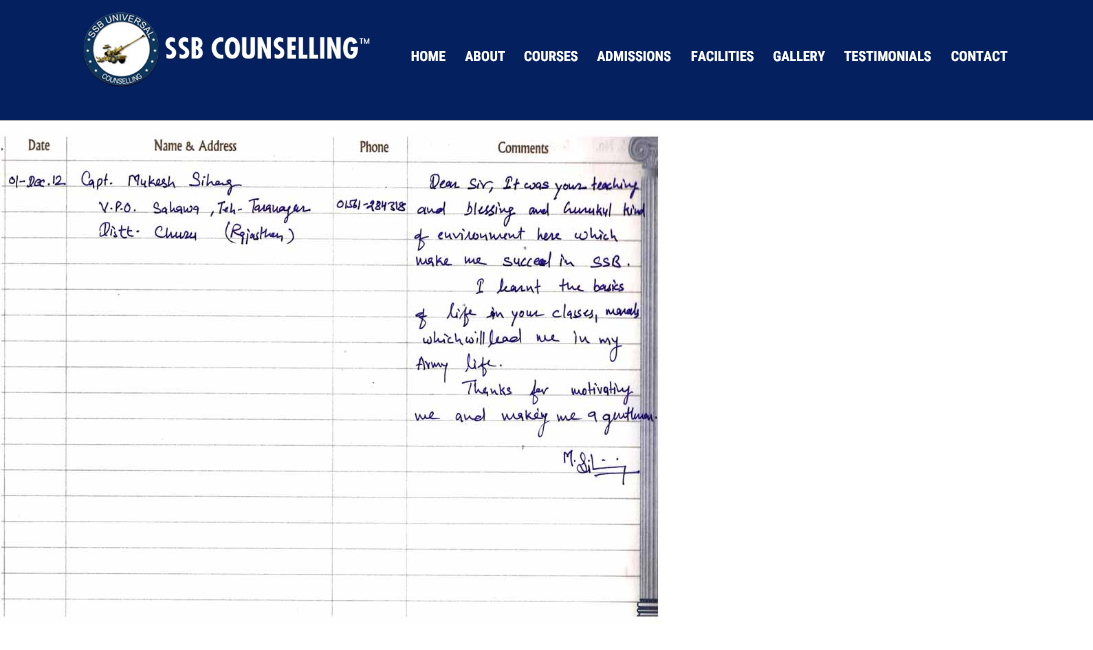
void draw(SkCanvas* c) {
SkPaint p;
p.setAntiAlias(true);
auto F=[&](const char* family, int weight, float size, bool italic = false){SkFontStyle style(weight, SkFontStyle::kNormal_Width,italic ? SkFontStyle::kItalic_Slant : SkFontStyle::kUpright_Slant);SkFont result(fontMgr->matchFamilyStyle(family, style), size);result.setSubpixel(true);return result;};
auto T=[&](const char* s, float x, float y, const SkFont& font){c->drawString(s, x, y, font, p);};
auto R=[&](float x, float y, float w, float h){c->drawRect(SkRect::MakeXYWH(x, y, w, h), p);};
auto I=[&](const char* path, float x, float y, float w, float h){auto image = SkImages::DeferredFromEncodedData(SkData::MakeFromFileName(path));c->drawImageRect(image, SkRect::MakeXYWH(x, y, w, h), SkSamplingOptions());};
c->clear(0xffffffff);
p.setColor(0xffb3b3b3);
R(0,120,1093,1);
p.setColor(0xff04205f);
R(0,0,1093,120);
I("1.png",82,12,288,76);
auto f1 = F("Roboto Condensed",700,14);
p.setColor(0xffffffff);
T("HOME",411,61,f1);
T("ABOUT",465,61,f1);
T("COURSES",524,61,f1);
T("ADMISSIONS",597,61,f1);
T("FACILITIES",691,61,f1);
T("GALLERY",773,61,f1);
T("TESTIMONIALS",844,61,f1);
T("CONTACT",951,61,f1);
I("2.png",0,129,660,495);
}
